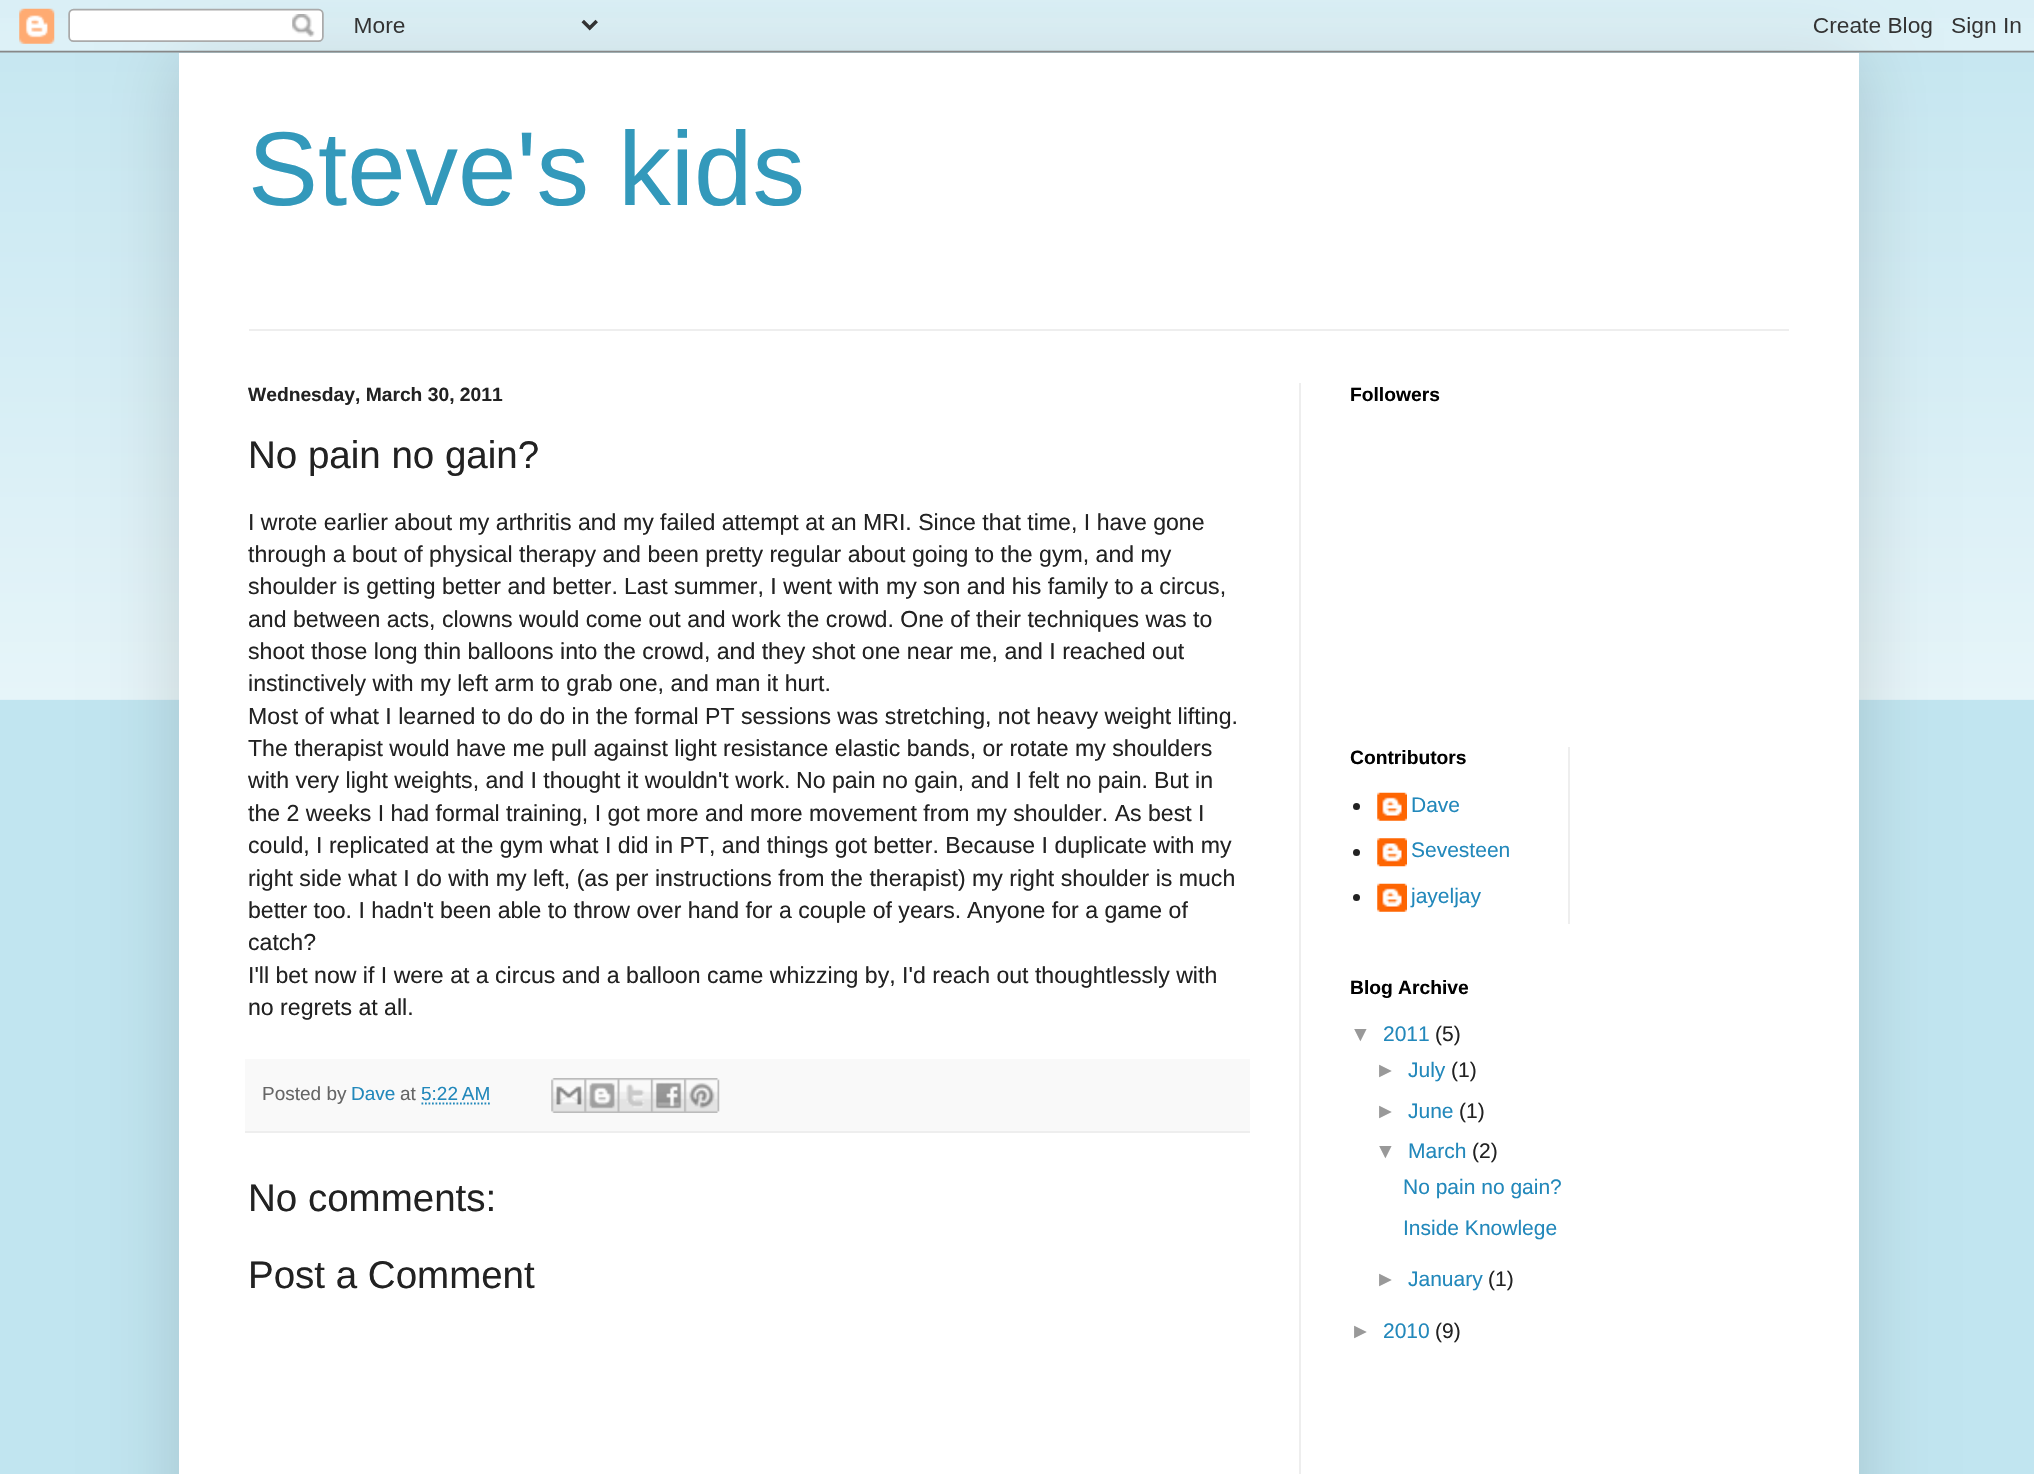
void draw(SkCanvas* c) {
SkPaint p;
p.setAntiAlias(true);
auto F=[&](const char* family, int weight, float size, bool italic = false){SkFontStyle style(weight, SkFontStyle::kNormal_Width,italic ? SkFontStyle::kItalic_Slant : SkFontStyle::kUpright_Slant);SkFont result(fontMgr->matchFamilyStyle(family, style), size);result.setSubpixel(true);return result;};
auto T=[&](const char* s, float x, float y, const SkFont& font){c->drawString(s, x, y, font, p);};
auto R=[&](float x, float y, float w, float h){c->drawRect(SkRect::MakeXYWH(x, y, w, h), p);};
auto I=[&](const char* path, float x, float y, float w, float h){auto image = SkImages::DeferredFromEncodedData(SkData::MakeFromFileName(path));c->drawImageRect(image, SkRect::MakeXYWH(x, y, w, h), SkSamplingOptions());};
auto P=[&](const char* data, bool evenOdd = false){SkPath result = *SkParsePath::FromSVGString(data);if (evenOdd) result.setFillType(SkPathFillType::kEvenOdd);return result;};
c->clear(0xffc1e5f0);
I("2.png",0,18,2034,682);
p.setColor(0x26000000);
p.setMaskFilter(SkMaskFilter::MakeBlur(kNormal_SkBlurStyle, 35));
c->drawRect(SkRect::MakeXYWH(179,53,1680,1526),p);
p.setMaskFilter(nullptr);
I("1.png",0,0,2034,53);
p.setColor(0xffffffff);
R(179,53,1680,1421);
auto f1 = F("Liberation Sans",400,105);
p.setColor(0xff3399bb);
T("Steve's kids",248,205,f1);
p.setColor(0xffeeeeee);
R(249,329,1540,2);
R(1299,383,2,1091);
auto f2 = F("Liberation Sans",700,19.25);
p.setColor(0xff222222);
T("Wednesday, March 30, 2011",248,401,f2);
auto f3 = F("Liberation Sans",400,38.5);
T("No pain no gain?",248,468,f3);
auto f4 = F("Liberation Sans",400,23.1);
T("I wrote earlier about my arthritis and my failed attempt at an MRI. Since that time, I have gone",248,530,f4);
T("through a bout of physical therapy and been pretty regular about going to the gym, and my",248,562,f4);
T("shoulder is getting better and better.",248,594,f4);
T("Last summer, I went with my son and his family to a circus,",624,594,f4);
T("and between acts, clowns would come out and work the crowd. One of their techniques was to",248,627,f4);
T("shoot those long thin balloons into the crowd, and they shot one near me, and I reached out",248,659,f4);
T("instinctively with my left arm to grab one, and man it hurt.",248,691,f4);
T("Most of what I learned to do do in the formal PT sessions was stretching, not heavy weight lifting.",248,724,f4);
T("The therapist would have me pull against light resistance elastic bands, or rotate my shoulders",248,756,f4);
T("with very light weights, and I thought it wouldn't work.",248,788,f4);
T("No pain no gain, and I felt no pain.",796,788,f4);
T("But in",1154,788,f4);
T("the 2 weeks I had formal training, I got more and more movement from my shoulder. As best I",248,821,f4);
T("could, I replicated at the gym what I did in PT, and things got better. Because I duplicate with my",248,853,f4);
T("right side what I do with my left, (as per instructions from the therapist) my right shoulder is much",248,886,f4);
T("better too. I hadn't been able to throw over hand for a couple of years.",248,918,f4);
T("Anyone for a game of",967,918,f4);
T("catch?",248,950,f4);
T("I'll bet now if I were at a circus and a balloon came whizzing by, I'd reach out thoughtlessly with",248,983,f4);
T("no regrets at all.",248,1015,f4);
p.setColor(0xfff9f9f9);
R(245,1059,1005,72);
p.setColor(0xffeeeeee);
R(245,1131,1005,2);
auto f5 = F("Liberation Sans",400,19);
p.setColor(0xff666666);
T("Posted by",262,1100,f5);
p.setColor(0xff2288bb);
T("Dave",351,1100,f5);
p.setColor(0xff666666);
T("at",400,1100,f5);
p.setColor(0xff2288bb);
T("5:22 AM",421,1100,f5);
p.setStroke(true);
p.setStrokeWidth(1.8);
p.setPathEffect(SkDashPathEffect::Make({{1.75f,1.75f}}, 0));
c->drawPath(P("M421.5 1103.5h68.5"),p);
p.setPathEffect(nullptr);
I("3.png",551,1078,34,35);
I("4.png",584,1078,34,35);
I("5.png",617,1078,34,35);
I("6.png",651,1078,34,35);
I("7.png",684,1078,36,35);
p.setStroke(false);
p.setColor(0xff222222);
T("No comments:",248,1211,f3);
T("Post a Comment",248,1288,f3);
p.setColor(0xff000000);
T("Followers",1350,401,f2);
T("Contributors",1350,764,f2);
p.setColor(0xff222222);
c->drawCircle(1356.5,806.5,3.5,p);
I("8.png",1377,792,30,29);
auto f6 = F("Liberation Sans",400,21);
p.setColor(0xff2288bb);
T("Dave",1411,812,f6);
p.setColor(0xff222222);
c->drawCircle(1356.5,852.5,3.5,p);
I("9.png",1377,838,30,29);
p.setColor(0xff2288bb);
T("Sevesteen",1411,857,f6);
p.setColor(0xff222222);
c->drawCircle(1356.5,897.5,3.5,p);
I("8.png",1377,883,30,29);
p.setColor(0xff2288bb);
T("jayeljay",1411,903,f6);
p.setColor(0xffeeeeee);
R(1568,747,2,177);
p.setColor(0xff000000);
T("Blog Archive",1350,994,f2);
p.setColor(0xff999999);
T("▼",1350,1041,f6);
p.setColor(0xff2288bb);
T("2011",1383,1041,f6);
p.setColor(0xff222222);
T("(5)",1435,1041,f6);
p.setColor(0xff999999);
T("►",1375,1077,f6);
p.setColor(0xff2288bb);
T("July",1408,1077,f6);
p.setColor(0xff222222);
T("(1)",1451,1077,f6);
p.setColor(0xff999999);
T("►",1375,1118,f6);
p.setColor(0xff2288bb);
T("June",1408,1118,f6);
p.setColor(0xff222222);
T("(1)",1459,1118,f6);
p.setColor(0xff999999);
T("▼",1375,1158,f6);
p.setColor(0xff2288bb);
T("March",1408,1158,f6);
p.setColor(0xff222222);
T("(2)",1472,1158,f6);
p.setColor(0xff2288bb);
T("No pain no gain?",1403,1194,f6);
T("Inside Knowlege",1403,1235,f6);
p.setColor(0xff999999);
T("►",1375,1286,f6);
p.setColor(0xff2288bb);
T("January",1408,1286,f6);
p.setColor(0xff222222);
T("(1)",1488,1286,f6);
p.setColor(0xff999999);
T("►",1350,1338,f6);
p.setColor(0xff2288bb);
T("2010",1383,1338,f6);
p.setColor(0xff222222);
T("(9)",1435,1338,f6);
}
